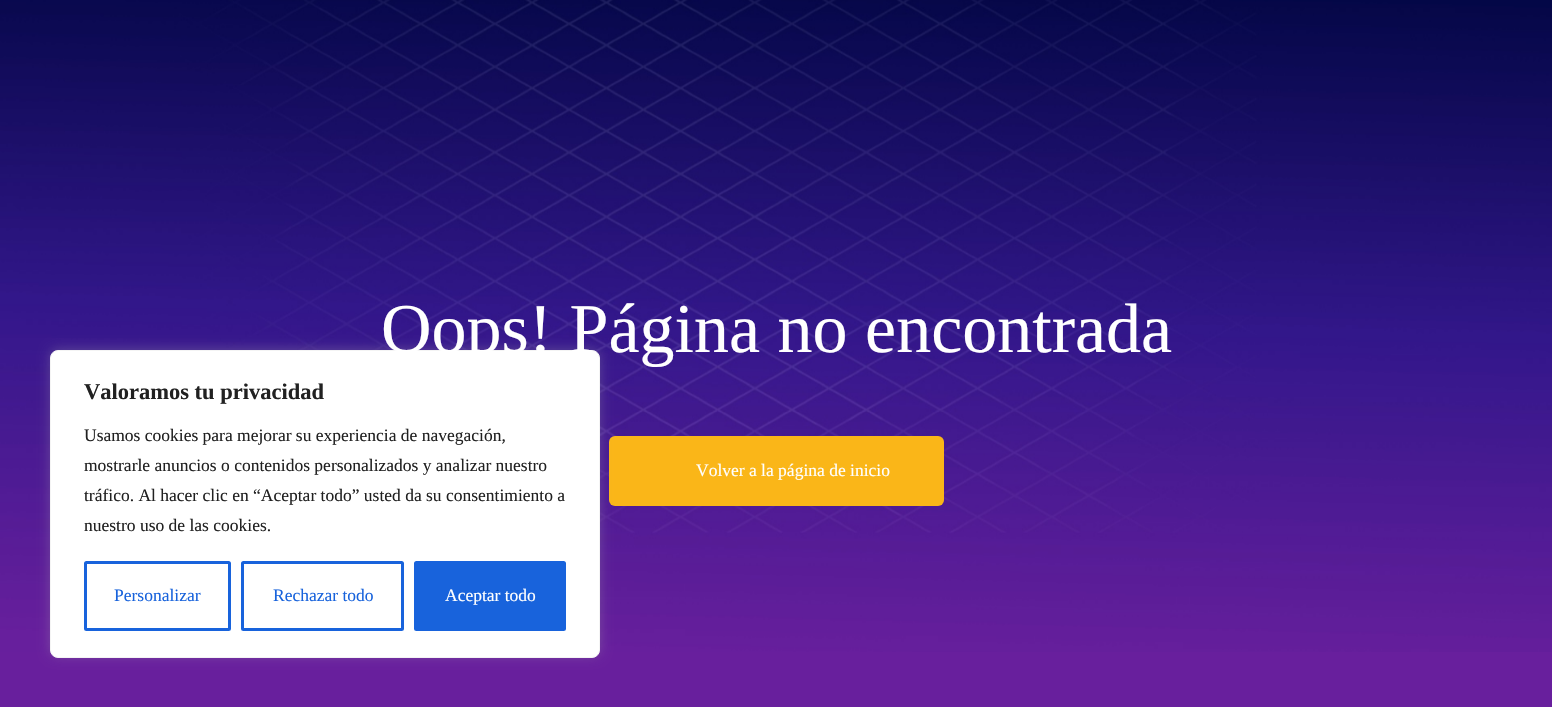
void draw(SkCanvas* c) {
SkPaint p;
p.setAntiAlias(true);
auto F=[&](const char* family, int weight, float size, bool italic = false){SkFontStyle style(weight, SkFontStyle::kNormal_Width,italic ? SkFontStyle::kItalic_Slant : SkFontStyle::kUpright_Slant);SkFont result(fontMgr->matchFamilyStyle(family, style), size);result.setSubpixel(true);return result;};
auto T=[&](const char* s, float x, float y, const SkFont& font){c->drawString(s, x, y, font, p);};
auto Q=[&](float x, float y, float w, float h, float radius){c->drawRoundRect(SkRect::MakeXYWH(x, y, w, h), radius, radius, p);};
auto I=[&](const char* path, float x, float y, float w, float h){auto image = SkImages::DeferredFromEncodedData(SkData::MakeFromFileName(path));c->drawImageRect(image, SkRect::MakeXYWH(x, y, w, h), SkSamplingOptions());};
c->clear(0xff681f9d);
I("1.png",0,0,1552,652);
p.setColor(0xfffab618);
Q(609,436,335,70,6);
p.setColor(0x4dacabab);
p.setMaskFilter(SkMaskFilter::MakeBlur(kNormal_SkBlurStyle, 6));
c->drawRoundRect(SkRect::MakeXYWH(50,349,550,307),8,8,p);
p.setMaskFilter(nullptr);
p.setColor(0xffffffff);
c->drawRoundRect(SkRect::MakeXYWH(50.5,350.5,549,307),7.5,7.5,p);
p.setStroke(true);
p.setStrokeWidth(1);
p.setColor(0xfff4f4f4);
c->drawRoundRect(SkRect::MakeXYWH(50.5,350.5,549,307),7.5,7.5,p);
auto f1 = F("Liberation Serif",700,22.5);
p.setStroke(false);
p.setColor(0xff212121);
T("Valoramos tu privacidad",84,399,f1);
auto f2 = F("Liberation Serif",400,17.5);
T("Usamos cookies para mejorar su experiencia de navegación,",84,441,f2);
T("mostrarle anuncios o contenidos personalizados y analizar nuestro",84,471,f2);
T("tráfico. Al hacer clic en “Aceptar todo” usted da su consentimiento a",84,501,f2);
T("nuestro uso de las cookies.",84,531,f2);
p.setStroke(true);
p.setStrokeWidth(3);
p.setColor(0xff1863dc);
c->drawRoundRect(SkRect::MakeXYWH(85.5,562.5,144,67),1,1,p);
p.setStroke(false);
T("Personalizar",114,601,f2);
p.setStroke(true);
c->drawRoundRect(SkRect::MakeXYWH(242.5,562.5,160,67),1,1,p);
p.setStroke(false);
T("Rechazar todo",273,601,f2);
c->drawRoundRect(SkRect::MakeXYWH(415.5,562.5,149,67),1,1,p);
p.setStroke(true);
c->drawRoundRect(SkRect::MakeXYWH(415.5,562.5,149,67),1,1,p);
p.setStroke(false);
p.setColor(0xffffffff);
T("Aceptar todo",445,601,f2);
auto f3 = F("Liberation Serif",400,70);
T("Oops! Página no encontrada",381,352,f3);
T("Volver a la página de inicio",696,476,f2);
}
